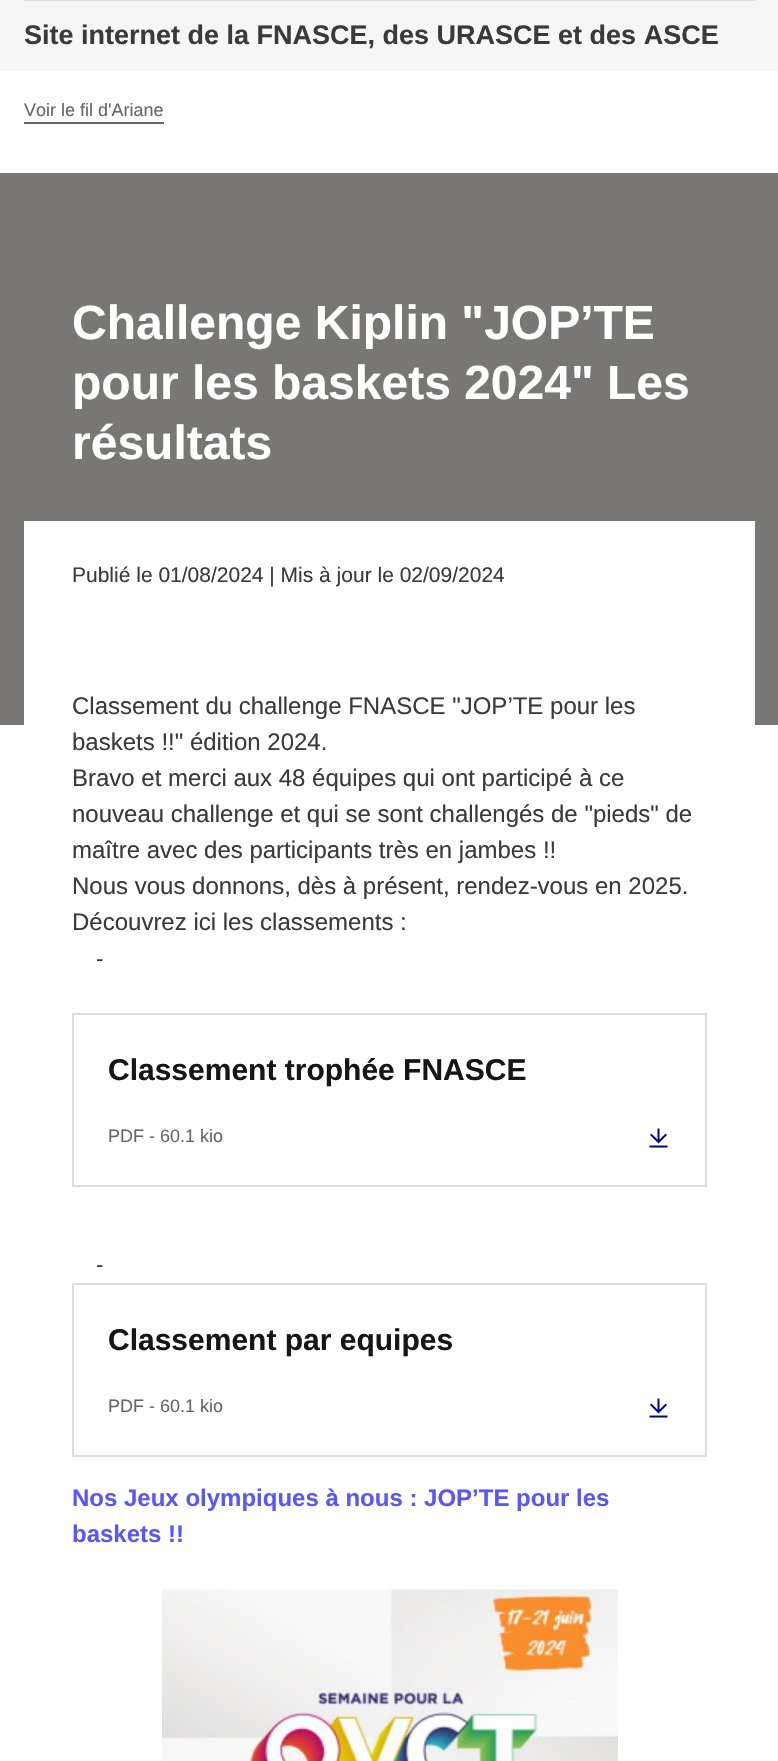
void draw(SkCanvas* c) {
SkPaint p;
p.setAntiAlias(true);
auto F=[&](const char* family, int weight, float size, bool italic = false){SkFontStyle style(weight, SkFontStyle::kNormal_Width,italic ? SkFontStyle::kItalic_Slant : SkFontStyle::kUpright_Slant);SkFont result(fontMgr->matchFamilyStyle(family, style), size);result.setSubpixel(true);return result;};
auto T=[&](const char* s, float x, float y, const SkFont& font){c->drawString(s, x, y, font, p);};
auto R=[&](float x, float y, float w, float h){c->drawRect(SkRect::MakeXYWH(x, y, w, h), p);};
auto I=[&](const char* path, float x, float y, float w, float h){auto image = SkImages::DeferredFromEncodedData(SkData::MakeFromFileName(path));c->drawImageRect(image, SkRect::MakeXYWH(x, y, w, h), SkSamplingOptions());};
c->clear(0xffffffff);
p.setColor(0xfff6f6f6);
R(0,0,778,71);
p.setColor(0xffdddddd);
R(24,0,731,1);
auto f1 = F("Liberation Sans",700,27);
p.setColor(0xff3a3a3a);
T("Site internet de la FNASCE, des URASCE et des ASCE",24,44,f1);
p.setColor(0xff666666);
R(24,122,140,2);
auto f2 = F("Liberation Sans",400,18);
T("Voir le fil d'Ariane",24,116,f2);
p.setColor(0xff797676);
R(0,173,778,552);
auto f3 = F("Liberation Sans",700,48);
p.setColor(0xffffffff);
T("Challenge Kiplin \"JOP’TE",72,339,f3);
T("pour les baskets 2024\" Les",72,399,f3);
T("résultats",72,459,f3);
R(24,521,731,204);
auto f4 = F("Liberation Sans",400,21);
p.setColor(0xff3a3a3a);
T("Publié le 01/08/2024 | Mis à jour le 02/09/2024",72,582,f4);
auto f5 = F("Liberation Sans",400,24);
T("Classement du challenge FNASCE \"JOP’TE pour les",72,714,f5);
T("baskets !!\" édition 2024.",72,750,f5);
T("Bravo et merci aux 48 équipes qui ont participé à ce",72,786,f5);
T("nouveau challenge et qui se sont challengés de \"pieds\" de",72,822,f5);
T("maître avec des participants très en jambes !!",72,858,f5);
T("Nous vous donnons, dès à présent, rendez-vous en 2025.",72,894,f5);
T("Découvrez ici les classements :",72,930,f5);
auto f6 = F("Liberation Sans",400,22);
T("-",96,966,f6);
p.setStroke(true);
p.setStrokeWidth(2);
p.setColor(0xffdddddd);
c->drawRect(SkRect::MakeXYWH(73,1014,633,172),p);
auto f7 = F("Liberation Sans",700,30);
p.setStroke(false);
p.setColor(0xff161616);
T("Classement trophée FNASCE",108,1080,f7);
p.setColor(0xff666666);
T("PDF - 60.1 kio",108,1142,f2);
I("1.png",649,1128,19,20);
p.setColor(0xff3a3a3a);
T("-",96,1272,f6);
p.setStroke(true);
p.setColor(0xffdddddd);
c->drawRect(SkRect::MakeXYWH(73,1284,633,172),p);
p.setStroke(false);
p.setColor(0xff161616);
T("Classement par equipes",108,1350,f7);
p.setColor(0xff666666);
T("PDF - 60.1 kio",108,1412,f2);
I("1.png",649,1398,19,20);
auto f8 = F("Liberation Sans",700,24);
p.setColor(0xff5858fa);
T("Nos Jeux olympiques à nous : JOP’TE pour les",72,1506,f8);
T("baskets !!",72,1542,f8);
I("2.png",162,1589,456,172);
}
